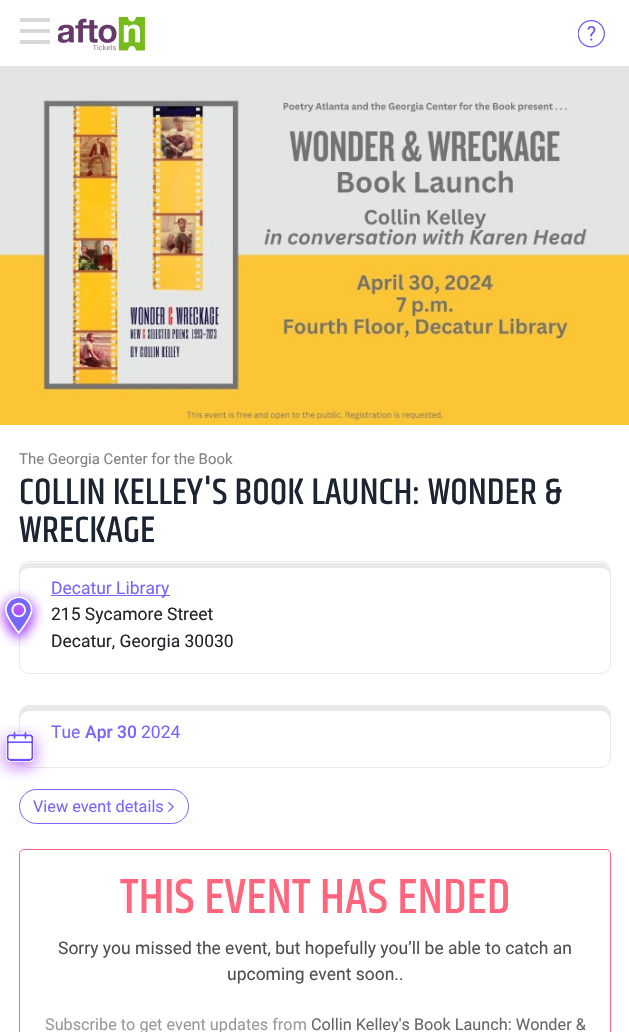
void draw(SkCanvas* c) {
SkPaint p;
p.setAntiAlias(true);
auto F=[&](const char* family, int weight, float size, bool italic = false){SkFontStyle style(weight, SkFontStyle::kNormal_Width,italic ? SkFontStyle::kItalic_Slant : SkFontStyle::kUpright_Slant);SkFont result(fontMgr->matchFamilyStyle(family, style), size);result.setSubpixel(true);return result;};
auto T=[&](const char* s, float x, float y, const SkFont& font){c->drawString(s, x, y, font, p);};
auto R=[&](float x, float y, float w, float h){c->drawRect(SkRect::MakeXYWH(x, y, w, h), p);};
auto I=[&](const char* path, float x, float y, float w, float h){auto image = SkImages::DeferredFromEncodedData(SkData::MakeFromFileName(path));c->drawImageRect(image, SkRect::MakeXYWH(x, y, w, h), SkSamplingOptions());};
auto P=[&](const char* data, bool evenOdd = false){SkPath result = *SkParsePath::FromSVGString(data);if (evenOdd) result.setFillType(SkPathFillType::kEvenOdd);return result;};
c->clear(0xffffffff);
p.setColor(0xffd8d8d8);
R(20,18,30,4);
R(20,29,30,4);
R(20,40,30,4);
I("1.png",58,16,87,35);
I("2.png",578,20,27,28);
I("3.png",0,66,629,359);
auto f1 = F("Roboto",400,15);
p.setColor(0xff828282);
T("The Georgia Center for the Book",19,464,f1);
auto f2 = F("Khand",500,37.5);
p.setColor(0xff1c2331);
T("COLLIN KELLEY'S BOOK LAUNCH: WONDER &",19,504,f2);
T("WRECKAGE",19,542,f2);
p.setColor(0xffe8e9ea);
c->drawPath(P("M29 568h572c5 0 9 3 9 8v-4c0-5-4-9-9-9h-572c-5 0-9 4-9 9v4c0-5 4-8 9-8z"),p);
p.setStroke(true);
p.setStrokeWidth(1);
c->drawRoundRect(SkRect::MakeXYWH(19.5,561.5,591,112),9.5,9.5,p);
I("4.png",0,589,44,58);
p.setStroke(false);
p.setColor(0xff7666ff);
R(51,595,119,1);
auto f3 = F("Roboto",400,17.5);
T("Decatur Library",51,594,f3);
p.setColor(0xff212529);
T("215 Sycamore Street",51,620,f3);
T("Decatur, Georgia 30030",51,647,f3);
p.setColor(0xffe8e9ea);
c->drawPath(P("M29 711h572c5 0 9 4 9 9v-5c0-5-4-9-9-9h-572c-5 0-9 4-9 9v5c0-5 4-9 9-9z"),p);
p.setStroke(true);
p.setColor(0x1a1c2331);
c->drawRoundRect(SkRect::MakeXYWH(19.5,705.5,591,62),9.5,9.5,p);
I("5.png",0,725,48,55);
p.setStroke(false);
p.setColor(0xff7666ff);
T("Tue",51,738,f3);
auto f4 = F("Roboto",500,17.5);
T("Apr 30",85,738,f4);
T("2024",141,738,f3);
p.setStroke(true);
c->drawRoundRect(SkRect::MakeXYWH(19.5,789.5,169,34),17,17,p);
auto f5 = F("Roboto",400,16.25);
p.setStroke(false);
T("View event details",33,812,f5);
I("6.png",168,801,6,11);
p.setStroke(true);
p.setColor(0xffff667d);
c->drawRoundRect(SkRect::MakeXYWH(19.5,849.5,591,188),4.5,4.5,p);
auto f6 = F("Khand",500,50);
p.setStroke(false);
T("THIS EVENT HAS ENDED",120,913,f6);
p.setColor(0xff4f4f4f);
T("Sorry you missed the event, but hopefully you’ll be able to catch an",58,954,f3);
T("upcoming event soon..",227,980,f3);
p.setColor(0xff999999);
T("Subscribe to get event updates from",45,1030,f5);
p.setColor(0xff666666);
T("Collin Kelley's Book Launch: Wonder &",311,1030,f5);
}
